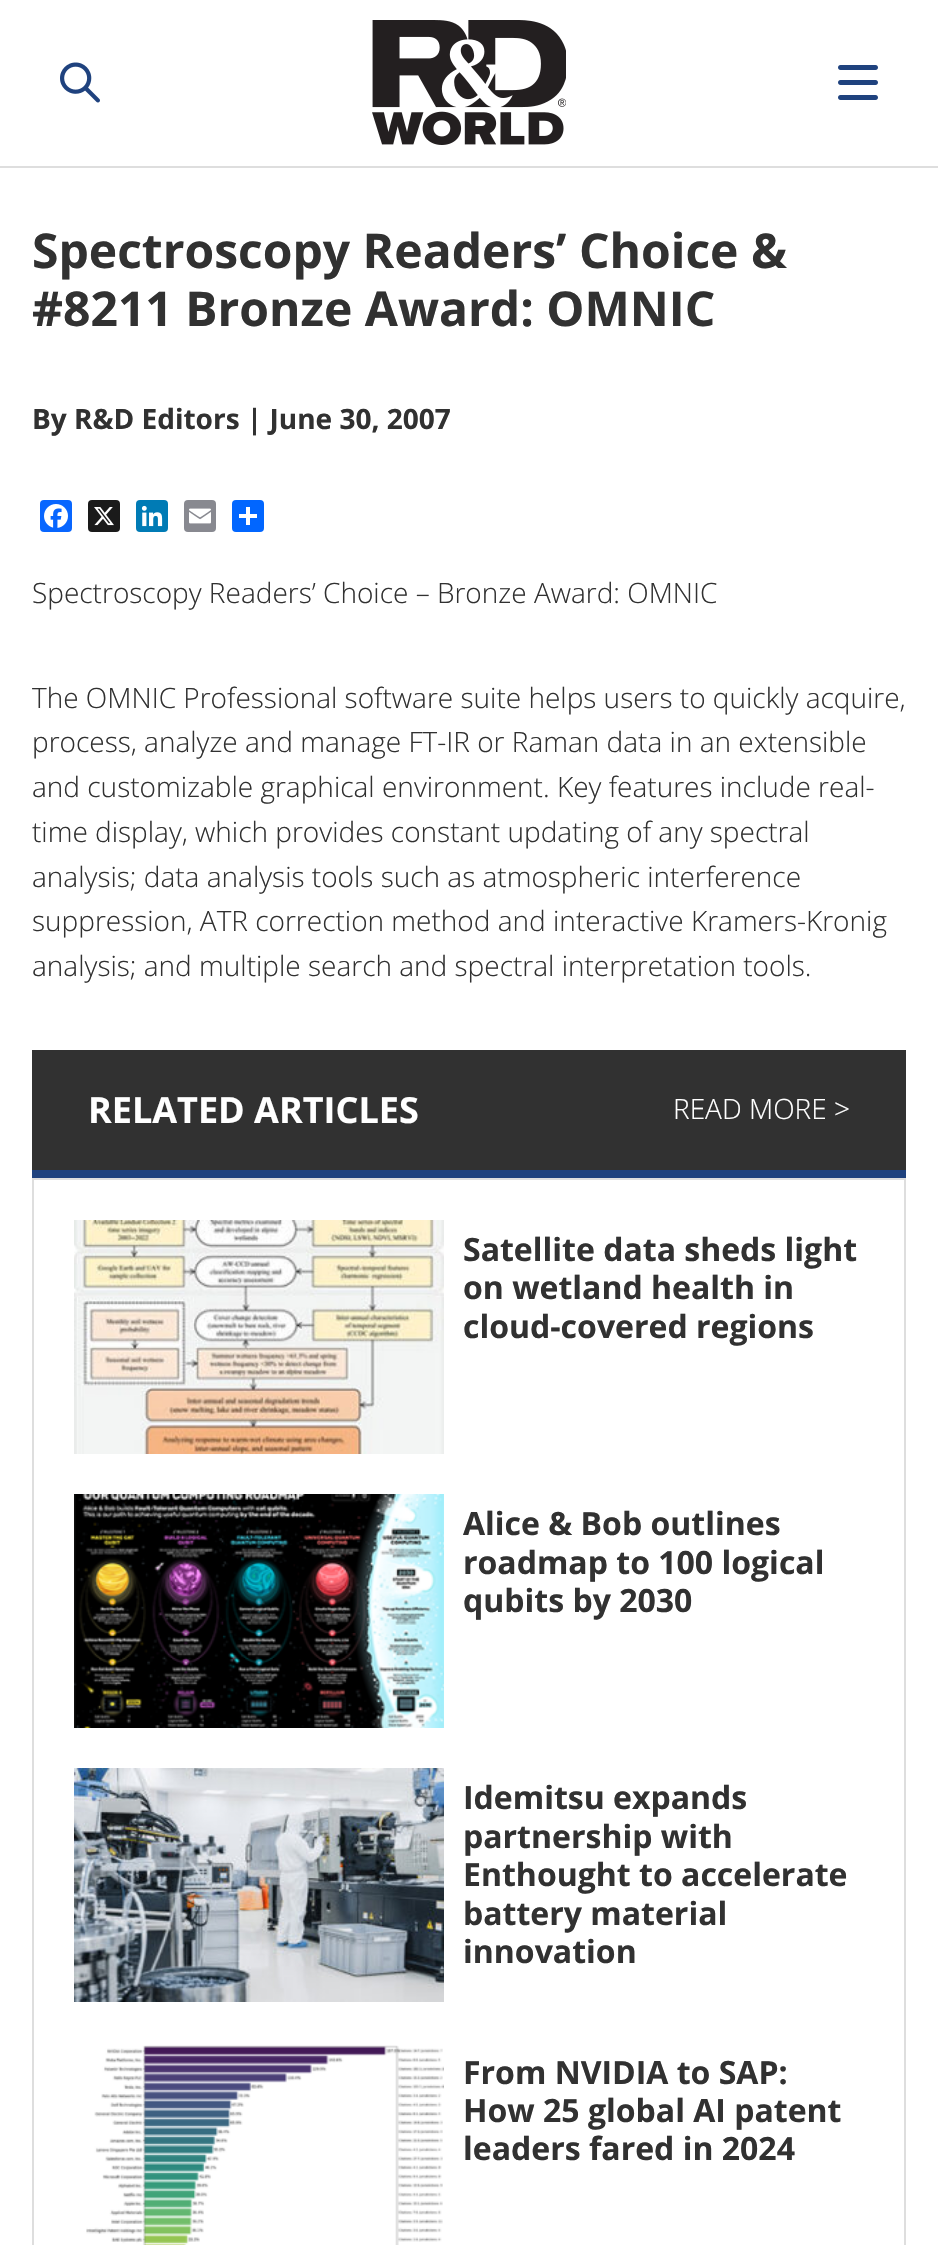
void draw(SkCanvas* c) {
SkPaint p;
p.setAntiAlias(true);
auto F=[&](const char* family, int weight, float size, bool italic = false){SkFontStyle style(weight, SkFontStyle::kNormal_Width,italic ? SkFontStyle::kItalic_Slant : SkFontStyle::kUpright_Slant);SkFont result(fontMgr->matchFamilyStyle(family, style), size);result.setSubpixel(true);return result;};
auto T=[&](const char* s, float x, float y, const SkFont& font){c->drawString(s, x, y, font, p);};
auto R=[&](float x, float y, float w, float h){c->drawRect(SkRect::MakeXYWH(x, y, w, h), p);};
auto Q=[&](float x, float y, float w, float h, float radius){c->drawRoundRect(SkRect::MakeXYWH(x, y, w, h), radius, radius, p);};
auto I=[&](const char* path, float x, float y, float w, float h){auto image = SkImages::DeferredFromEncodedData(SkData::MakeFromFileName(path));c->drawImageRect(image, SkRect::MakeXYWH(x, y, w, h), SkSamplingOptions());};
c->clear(0xffffffff);
p.setColor(0xffdedede);
R(0,166,938,2);
I("1.png",372,20,194,125);
I("2.png",60,62,40,41);
I("3.png",838,65,40,35);
auto f1 = F("Open Sans",700,48);
p.setColor(0xff313131);
T("Spectroscopy Readers’ Choice &",32,268,f1);
T("#8211 Bronze Award: OMNIC",32,326,f1);
auto f2 = F("Open Sans",700,28);
T("By R&D Editors | June 30, 2007",32,429,f2);
p.setColor(0xff0866ff);
Q(40,500,32,32,4);
I("4.png",44,504,24,24);
p.setColor(0xff1a1a1a);
Q(88,500,32,32,4);
I("5.png",94,507,20,19);
p.setColor(0xff007bb5);
Q(136,500,32,32,4);
I("6.png",141,505,22,22);
p.setColor(0xff888990);
Q(184,500,32,32,4);
I("7.png",189,508,22,16);
p.setColor(0xff0166ff);
Q(232,500,32,32,4);
p.setColor(0xffffffff);
R(246,507,4,18);
R(239,514,18,4);
auto f3 = F("Open Sans",300,28);
p.setColor(0xff313131);
T("Spectroscopy Readers’ Choice – Bronze Award: OMNIC",32,603,f3);
T("The OMNIC Professional software suite helps users to quickly acquire,",32,708,f3);
T("process, analyze and manage FT-IR or Raman data in an extensible",32,752,f3);
T("and customizable graphical environment. Key features include real-",32,797,f3);
T("time display, which provides constant updating of any spectral",32,842,f3);
T("analysis; data analysis tools such as atmospheric interference",32,887,f3);
T("suppression, ATR correction method and interactive Kramers-Kronig",32,931,f3);
T("analysis; and multiple search and spectral interpretation tools.",32,976,f3);
R(32,1050,874,120);
p.setColor(0xff1f427e);
R(32,1170,874,8);
auto f4 = F("Open Sans",700,36);
p.setColor(0xffffffff);
T("RELATED ARTICLES",88,1123,f4);
T("READ MORE >",673,1119,f3);
p.setStroke(true);
p.setStrokeWidth(2);
p.setColor(0xffdedede);
c->drawRect(SkRect::MakeXYWH(33,1179,872,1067),p);
I("8.png",74,1220,370,234);
auto f5 = F("Open Sans",700,32);
p.setStroke(false);
p.setColor(0xff313131);
T("Satellite data sheds light",463,1261,f5);
T("on wetland health in",463,1299,f5);
T("cloud-covered regions",463,1338,f5);
I("9.png",74,1494,370,234);
T("Alice & Bob outlines",463,1535,f5);
T("roadmap to 100 logical",463,1574,f5);
T("qubits by 2030",463,1612,f5);
I("10.png",74,1768,370,234);
T("Idemitsu expands",463,1809,f5);
T("partnership with",463,1848,f5);
T("Enthought to accelerate",463,1886,f5);
T("battery material",463,1925,f5);
T("innovation",463,1963,f5);
I("11.png",86,2045,358,200);
T("From NVIDIA to SAP:",463,2084,f5);
T("How 25 global AI patent",463,2122,f5);
T("leaders fared in 2024",463,2160,f5);
}
